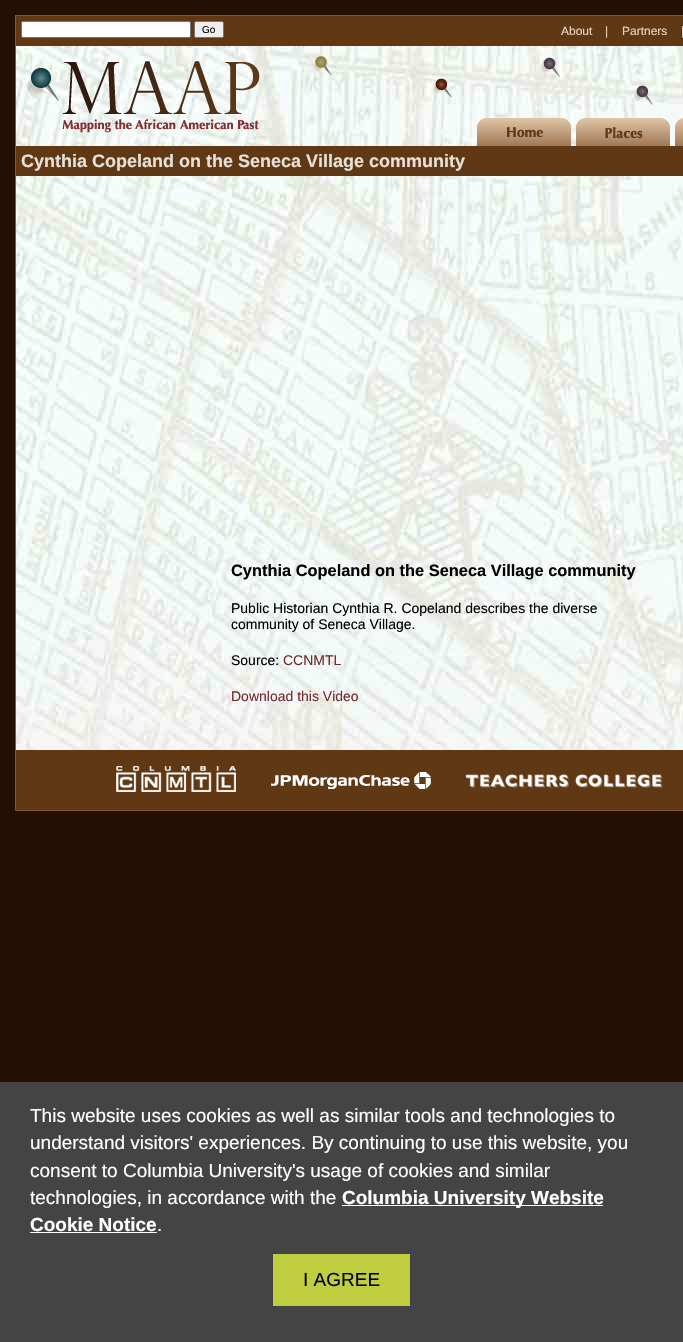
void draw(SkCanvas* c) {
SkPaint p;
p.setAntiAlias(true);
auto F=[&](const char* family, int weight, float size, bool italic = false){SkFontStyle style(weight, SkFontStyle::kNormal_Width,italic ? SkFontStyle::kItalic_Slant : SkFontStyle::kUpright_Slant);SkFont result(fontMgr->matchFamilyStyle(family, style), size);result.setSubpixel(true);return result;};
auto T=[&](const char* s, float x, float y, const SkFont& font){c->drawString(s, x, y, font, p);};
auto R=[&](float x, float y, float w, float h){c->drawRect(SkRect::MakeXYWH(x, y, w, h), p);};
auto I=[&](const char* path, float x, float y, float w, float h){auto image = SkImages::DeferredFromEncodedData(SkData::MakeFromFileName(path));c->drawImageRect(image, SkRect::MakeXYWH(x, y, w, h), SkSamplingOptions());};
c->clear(0xff240f04);
I("1.png",16,46,667,704);
p.setStroke(true);
p.setStrokeWidth(1);
p.setColor(0xff7e5733);
c->drawRect(SkRect::MakeXYWH(15.5,15.5,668,795),p);
p.setStroke(false);
p.setColor(0xff603813);
R(16,16,667,30);
p.setColor(0xffffffff);
c->drawRoundRect(SkRect::MakeXYWH(21.5,21.5,169,16),1.5,1.5,p);
p.setStroke(true);
p.setColor(0xff767676);
c->drawRoundRect(SkRect::MakeXYWH(21.5,21.5,169,16),1.5,1.5,p);
p.setStroke(false);
p.setColor(0xffefefef);
c->drawRoundRect(SkRect::MakeXYWH(194.5,21.5,29,16),1.5,1.5,p);
p.setStroke(true);
p.setColor(0xff767676);
c->drawRoundRect(SkRect::MakeXYWH(194.5,21.5,29,16),1.5,1.5,p);
auto f1 = F("Liberation Sans",400,10);
p.setStroke(false);
p.setColor(0xff000000);
T("Go",202,33,f1);
auto f2 = F("Liberation Sans",400,12);
p.setColor(0xffe1d3c2);
T("About",561,35,f2);
T("|",605,35,f2);
T("Partners",622,35,f2);
T("|",681,35,f2);
I("2.png",26,56,627,77);
I("3.png",477,118,94,28);
I("4.png",576,118,94,28);
I("5.png",675,118,8,28);
p.setColor(0xff603813);
R(16,146,667,30);
auto f3 = F("Liberation Sans",700,18);
p.setColor(0xffe7e1db);
T("Cynthia Copeland on the Seneca Village community",21,167,f3);
auto f4 = F("Liberation Sans",700,16.4);
p.setColor(0xff000000);
T("Cynthia Copeland on the Seneca Village community",231,576,f4);
auto f5 = F("Liberation Sans",400,14);
T("Public Historian Cynthia R. Copeland describes the diverse",231,613,f5);
T("community of Seneca Village.",231,629,f5);
T("Source:",231,665,f5);
p.setColor(0xff732b2e);
T("CCNMTL",283,665,f5);
T("Download this Video",231,701,f5);
p.setColor(0xff603813);
R(16,750,667,60);
I("6.png",116,766,547,26);
p.setColor(0xff444444);
R(0,1082,683,260);
auto f6 = F("Liberation Sans",400,19);
p.setColor(0xffffffff);
T("This website uses cookies as well as similar tools and technologies to",30,1122,f6);
T("understand visitors' experiences. By continuing to use this website, you",30,1149,f6);
T("consent to Columbia University's usage of cookies and similar",30,1177,f6);
T("technologies, in accordance with the",30,1204,f6);
R(342,1205,261,1);
auto f7 = F("Liberation Sans",700,19);
T("Columbia University Website",342,1204,f7);
T("Cookie Notice",30,1231,f7);
R(30,1232,127,1);
T(".",157,1231,f6);
p.setColor(0xffc0cd3f);
R(273,1254,137,52);
p.setColor(0xff000000);
T("I AGREE",303,1286,f6);
}
